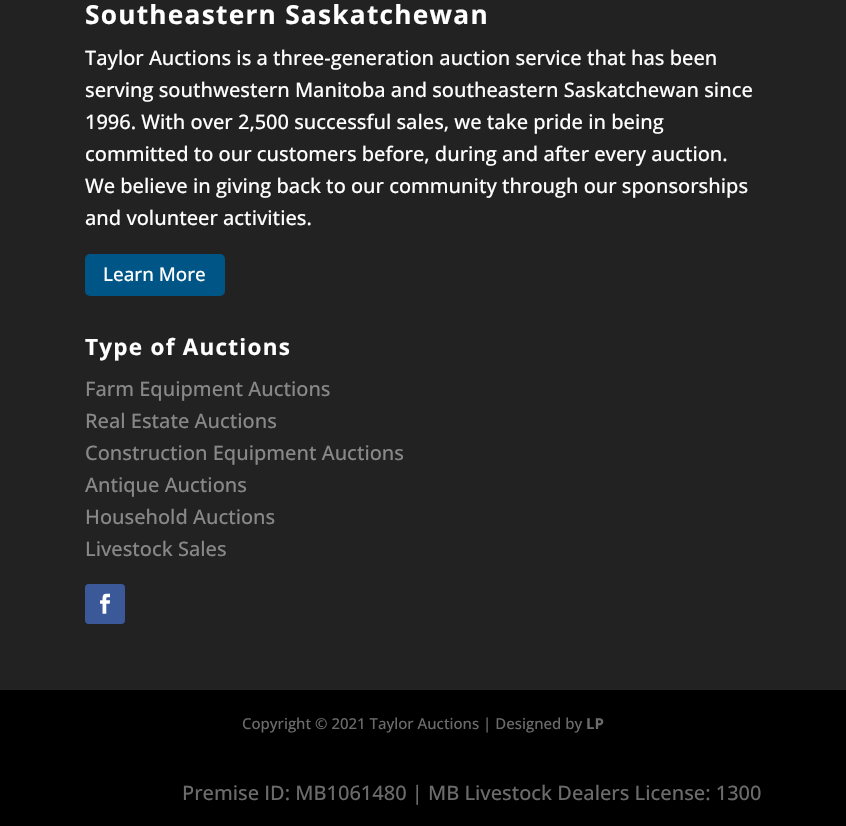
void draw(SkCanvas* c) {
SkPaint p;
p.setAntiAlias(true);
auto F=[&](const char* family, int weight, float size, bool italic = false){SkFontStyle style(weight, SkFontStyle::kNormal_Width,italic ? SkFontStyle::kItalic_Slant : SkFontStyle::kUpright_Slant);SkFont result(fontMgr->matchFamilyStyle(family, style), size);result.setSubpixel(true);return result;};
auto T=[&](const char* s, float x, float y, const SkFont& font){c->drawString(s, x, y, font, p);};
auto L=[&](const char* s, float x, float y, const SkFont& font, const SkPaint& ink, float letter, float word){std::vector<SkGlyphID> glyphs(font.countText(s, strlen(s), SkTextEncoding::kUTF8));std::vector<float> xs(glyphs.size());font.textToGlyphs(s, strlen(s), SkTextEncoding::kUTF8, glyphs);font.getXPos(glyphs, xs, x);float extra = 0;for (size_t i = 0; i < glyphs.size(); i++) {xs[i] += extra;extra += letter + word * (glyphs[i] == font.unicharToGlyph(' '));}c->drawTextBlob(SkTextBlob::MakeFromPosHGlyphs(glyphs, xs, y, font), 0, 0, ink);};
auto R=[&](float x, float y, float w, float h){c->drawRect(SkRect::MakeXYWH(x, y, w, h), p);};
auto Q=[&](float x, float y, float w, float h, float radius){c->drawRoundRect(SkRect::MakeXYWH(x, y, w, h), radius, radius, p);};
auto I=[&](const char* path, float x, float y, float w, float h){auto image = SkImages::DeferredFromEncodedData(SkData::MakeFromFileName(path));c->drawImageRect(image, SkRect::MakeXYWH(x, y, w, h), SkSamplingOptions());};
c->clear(0xff222222);
auto f1 = F("Open Sans",700,26.25);
p.setColor(0xffffffff);
L("Southeastern Saskatchewan",85,24,f1,p,1.25,0);
auto f2 = F("Open Sans",500,20);
T("Taylor Auctions is a three-generation auction service that has been",85,65,f2);
T("serving southwestern Manitoba and southeastern Saskatchewan since",85,97,f2);
T("1996. With over 2,500 successful sales, we take pride in being",85,129,f2);
T("committed to our customers before, during and after every auction.",85,161,f2);
T("We believe in giving back to our community through our sponsorships",85,193,f2);
T("and volunteer activities.",85,225,f2);
p.setColor(0xff005587);
Q(85,254,140,42,5);
auto f3 = F("Open Sans",500,18.75);
p.setColor(0xffffffff);
T("Learn More",103,281,f3);
auto f4 = F("Open Sans",700,22.5);
L("Type of Auctions",85,355,f4,p,1.25,0);
p.setColor(0xff888888);
T("Farm Equipment Auctions",85,396,f2);
T("Real Estate Auctions",85,428,f2);
T("Construction Equipment Auctions",85,460,f2);
T("Antique Auctions",85,492,f2);
T("Household Auctions",85,524,f2);
T("Livestock Sales",85,556,f2);
p.setColor(0xff3b5998);
Q(85,584,40,40,4);
I("1.png",100,593,10,21);
p.setColor(0xff000000);
R(0,690,846,136);
auto f5 = F("Open Sans",500,15);
p.setColor(0xff6b6b6b);
T("Copyright © 2021 Taylor Auctions | Designed by",242,729,f5);
auto f6 = F("Open Sans",700,15);
T("LP",586,729,f6);
T("Premise ID: MB1061480 | MB Livestock Dealers License: 1300",182,800,f2);
}
